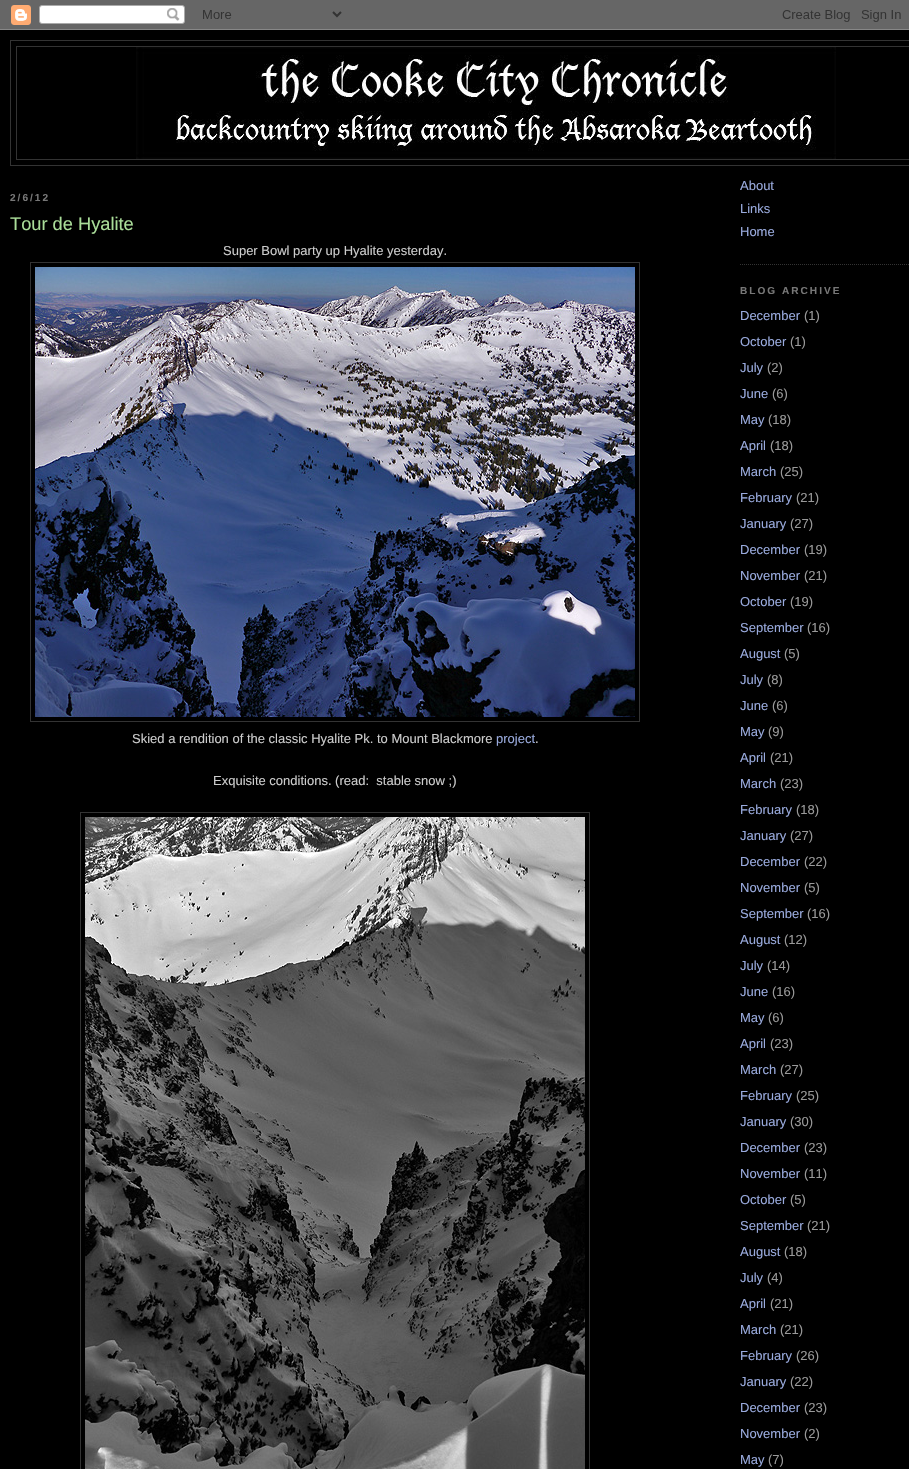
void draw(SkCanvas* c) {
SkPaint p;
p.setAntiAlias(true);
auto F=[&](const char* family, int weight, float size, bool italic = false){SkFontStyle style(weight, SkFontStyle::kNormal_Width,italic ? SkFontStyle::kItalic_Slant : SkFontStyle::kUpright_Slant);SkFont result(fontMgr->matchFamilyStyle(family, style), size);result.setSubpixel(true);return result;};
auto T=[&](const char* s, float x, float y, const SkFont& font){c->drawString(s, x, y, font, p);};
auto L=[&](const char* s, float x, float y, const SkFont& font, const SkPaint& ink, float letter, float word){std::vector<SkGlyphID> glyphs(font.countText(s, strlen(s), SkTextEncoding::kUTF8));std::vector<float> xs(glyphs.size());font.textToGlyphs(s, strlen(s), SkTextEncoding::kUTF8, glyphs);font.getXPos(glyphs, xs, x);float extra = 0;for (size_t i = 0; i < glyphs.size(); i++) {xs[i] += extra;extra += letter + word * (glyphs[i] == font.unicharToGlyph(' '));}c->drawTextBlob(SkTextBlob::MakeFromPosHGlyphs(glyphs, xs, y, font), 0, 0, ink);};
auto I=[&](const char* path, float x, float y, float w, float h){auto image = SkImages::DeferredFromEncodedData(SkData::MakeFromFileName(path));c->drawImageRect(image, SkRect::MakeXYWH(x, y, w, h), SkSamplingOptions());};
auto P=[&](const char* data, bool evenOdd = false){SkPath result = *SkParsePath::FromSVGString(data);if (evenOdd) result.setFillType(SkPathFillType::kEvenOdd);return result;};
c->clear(0xff000000);
I("1.png",0,0,909,30);
p.setStroke(true);
p.setStrokeWidth(1);
p.setColor(0xff333333);
c->drawRect(SkRect::MakeXYWH(10.5,40.5,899,125),p);
c->drawRect(SkRect::MakeXYWH(16.5,46.5,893,113),p);
I("2.png",136,47,700,112);
auto f1 = F("Liberation Sans",700,10.1);
p.setStroke(false);
p.setColor(0xff777777);
L("2/6/12",10,201,f1,p,2,0);
auto f2 = F("Liberation Sans",400,18.25);
p.setColor(0xffaadd99);
T("Tour de Hyalite",10,230,f2);
auto f3 = F("Liberation Sans",400,13);
p.setColor(0xffcccccc);
T("Super Bowl party up Hyalite yesterday.",223,255,f3);
p.setStroke(true);
p.setColor(0xff333333);
c->drawRect(SkRect::MakeXYWH(30.5,262.5,609,459),p);
I("3.png",35,267,600,450);
p.setStroke(false);
p.setColor(0xffcccccc);
T("Skied a rendition of the classic Hyalite Pk. to Mount Blackmore",132,743,f3);
p.setColor(0xff99aadd);
T("project",496,743,f3);
p.setColor(0xffcccccc);
T(".",535,743,f3);
T("Exquisite conditions. (read:  stable snow ;)",213,785,f3);
p.setStroke(true);
p.setColor(0xff333333);
c->drawRect(SkRect::MakeXYWH(80.5,812.5,509,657),p);
I("4.png",85,817,500,652);
p.setPathEffect(SkDashPathEffect::Make({{1,1}}, 0));
c->drawPath(P("M740 264.5h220"),p);
p.setPathEffect(nullptr);
p.setStroke(false);
p.setColor(0xff99aadd);
T("About",740,190,f3);
T("Links",740,213,f3);
T("Home",740,236,f3);
p.setColor(0xff777777);
L("BLOG ARCHIVE",740,294,f1,p,2,0);
p.setColor(0xff99aadd);
T("December",740,320,f3);
p.setColor(0xff999999);
T("(1)",804,320,f3);
p.setColor(0xff99aadd);
T("October",740,346,f3);
p.setColor(0xff999999);
T("(1)",790,346,f3);
p.setColor(0xff99aadd);
T("July",740,372,f3);
p.setColor(0xff999999);
T("(2)",767,372,f3);
p.setColor(0xff99aadd);
T("June",740,398,f3);
p.setColor(0xff999999);
T("(6)",772,398,f3);
p.setColor(0xff99aadd);
T("May",740,424,f3);
p.setColor(0xff999999);
T("(18)",768,424,f3);
p.setColor(0xff99aadd);
T("April",740,450,f3);
p.setColor(0xff999999);
T("(18)",770,450,f3);
p.setColor(0xff99aadd);
T("March",740,476,f3);
p.setColor(0xff999999);
T("(25)",780,476,f3);
p.setColor(0xff99aadd);
T("February",740,502,f3);
p.setColor(0xff999999);
T("(21)",796,502,f3);
p.setColor(0xff99aadd);
T("January",740,528,f3);
p.setColor(0xff999999);
T("(27)",790,528,f3);
p.setColor(0xff99aadd);
T("December",740,554,f3);
p.setColor(0xff999999);
T("(19)",804,554,f3);
p.setColor(0xff99aadd);
T("November",740,580,f3);
p.setColor(0xff999999);
T("(21)",804,580,f3);
p.setColor(0xff99aadd);
T("October",740,606,f3);
p.setColor(0xff999999);
T("(19)",790,606,f3);
p.setColor(0xff99aadd);
T("September",740,632,f3);
p.setColor(0xff999999);
T("(16)",807,632,f3);
p.setColor(0xff99aadd);
T("August",740,658,f3);
p.setColor(0xff999999);
T("(5)",784,658,f3);
p.setColor(0xff99aadd);
T("July",740,684,f3);
p.setColor(0xff999999);
T("(8)",767,684,f3);
p.setColor(0xff99aadd);
T("June",740,710,f3);
p.setColor(0xff999999);
T("(6)",772,710,f3);
p.setColor(0xff99aadd);
T("May",740,736,f3);
p.setColor(0xff999999);
T("(9)",768,736,f3);
p.setColor(0xff99aadd);
T("April",740,762,f3);
p.setColor(0xff999999);
T("(21)",770,762,f3);
p.setColor(0xff99aadd);
T("March",740,788,f3);
p.setColor(0xff999999);
T("(23)",780,788,f3);
p.setColor(0xff99aadd);
T("February",740,814,f3);
p.setColor(0xff999999);
T("(18)",796,814,f3);
p.setColor(0xff99aadd);
T("January",740,840,f3);
p.setColor(0xff999999);
T("(27)",790,840,f3);
p.setColor(0xff99aadd);
T("December",740,866,f3);
p.setColor(0xff999999);
T("(22)",804,866,f3);
p.setColor(0xff99aadd);
T("November",740,892,f3);
p.setColor(0xff999999);
T("(5)",804,892,f3);
p.setColor(0xff99aadd);
T("September",740,918,f3);
p.setColor(0xff999999);
T("(16)",807,918,f3);
p.setColor(0xff99aadd);
T("August",740,944,f3);
p.setColor(0xff999999);
T("(12)",784,944,f3);
p.setColor(0xff99aadd);
T("July",740,970,f3);
p.setColor(0xff999999);
T("(14)",767,970,f3);
p.setColor(0xff99aadd);
T("June",740,996,f3);
p.setColor(0xff999999);
T("(16)",772,996,f3);
p.setColor(0xff99aadd);
T("May",740,1022,f3);
p.setColor(0xff999999);
T("(6)",768,1022,f3);
p.setColor(0xff99aadd);
T("April",740,1048,f3);
p.setColor(0xff999999);
T("(23)",770,1048,f3);
p.setColor(0xff99aadd);
T("March",740,1074,f3);
p.setColor(0xff999999);
T("(27)",780,1074,f3);
p.setColor(0xff99aadd);
T("February",740,1100,f3);
p.setColor(0xff999999);
T("(25)",796,1100,f3);
p.setColor(0xff99aadd);
T("January",740,1126,f3);
p.setColor(0xff999999);
T("(30)",790,1126,f3);
p.setColor(0xff99aadd);
T("December",740,1152,f3);
p.setColor(0xff999999);
T("(23)",804,1152,f3);
p.setColor(0xff99aadd);
T("November",740,1178,f3);
p.setColor(0xff999999);
T("(11)",804,1178,f3);
p.setColor(0xff99aadd);
T("October",740,1204,f3);
p.setColor(0xff999999);
T("(5)",790,1204,f3);
p.setColor(0xff99aadd);
T("September",740,1230,f3);
p.setColor(0xff999999);
T("(21)",807,1230,f3);
p.setColor(0xff99aadd);
T("August",740,1256,f3);
p.setColor(0xff999999);
T("(18)",784,1256,f3);
p.setColor(0xff99aadd);
T("July",740,1282,f3);
p.setColor(0xff999999);
T("(4)",767,1282,f3);
p.setColor(0xff99aadd);
T("April",740,1308,f3);
p.setColor(0xff999999);
T("(21)",770,1308,f3);
p.setColor(0xff99aadd);
T("March",740,1334,f3);
p.setColor(0xff999999);
T("(21)",780,1334,f3);
p.setColor(0xff99aadd);
T("February",740,1360,f3);
p.setColor(0xff999999);
T("(26)",796,1360,f3);
p.setColor(0xff99aadd);
T("January",740,1386,f3);
p.setColor(0xff999999);
T("(22)",790,1386,f3);
p.setColor(0xff99aadd);
T("December",740,1412,f3);
p.setColor(0xff999999);
T("(23)",804,1412,f3);
p.setColor(0xff99aadd);
T("November",740,1438,f3);
p.setColor(0xff999999);
T("(2)",804,1438,f3);
p.setColor(0xff99aadd);
T("May",740,1464,f3);
p.setColor(0xff999999);
T("(7)",768,1464,f3);
}
